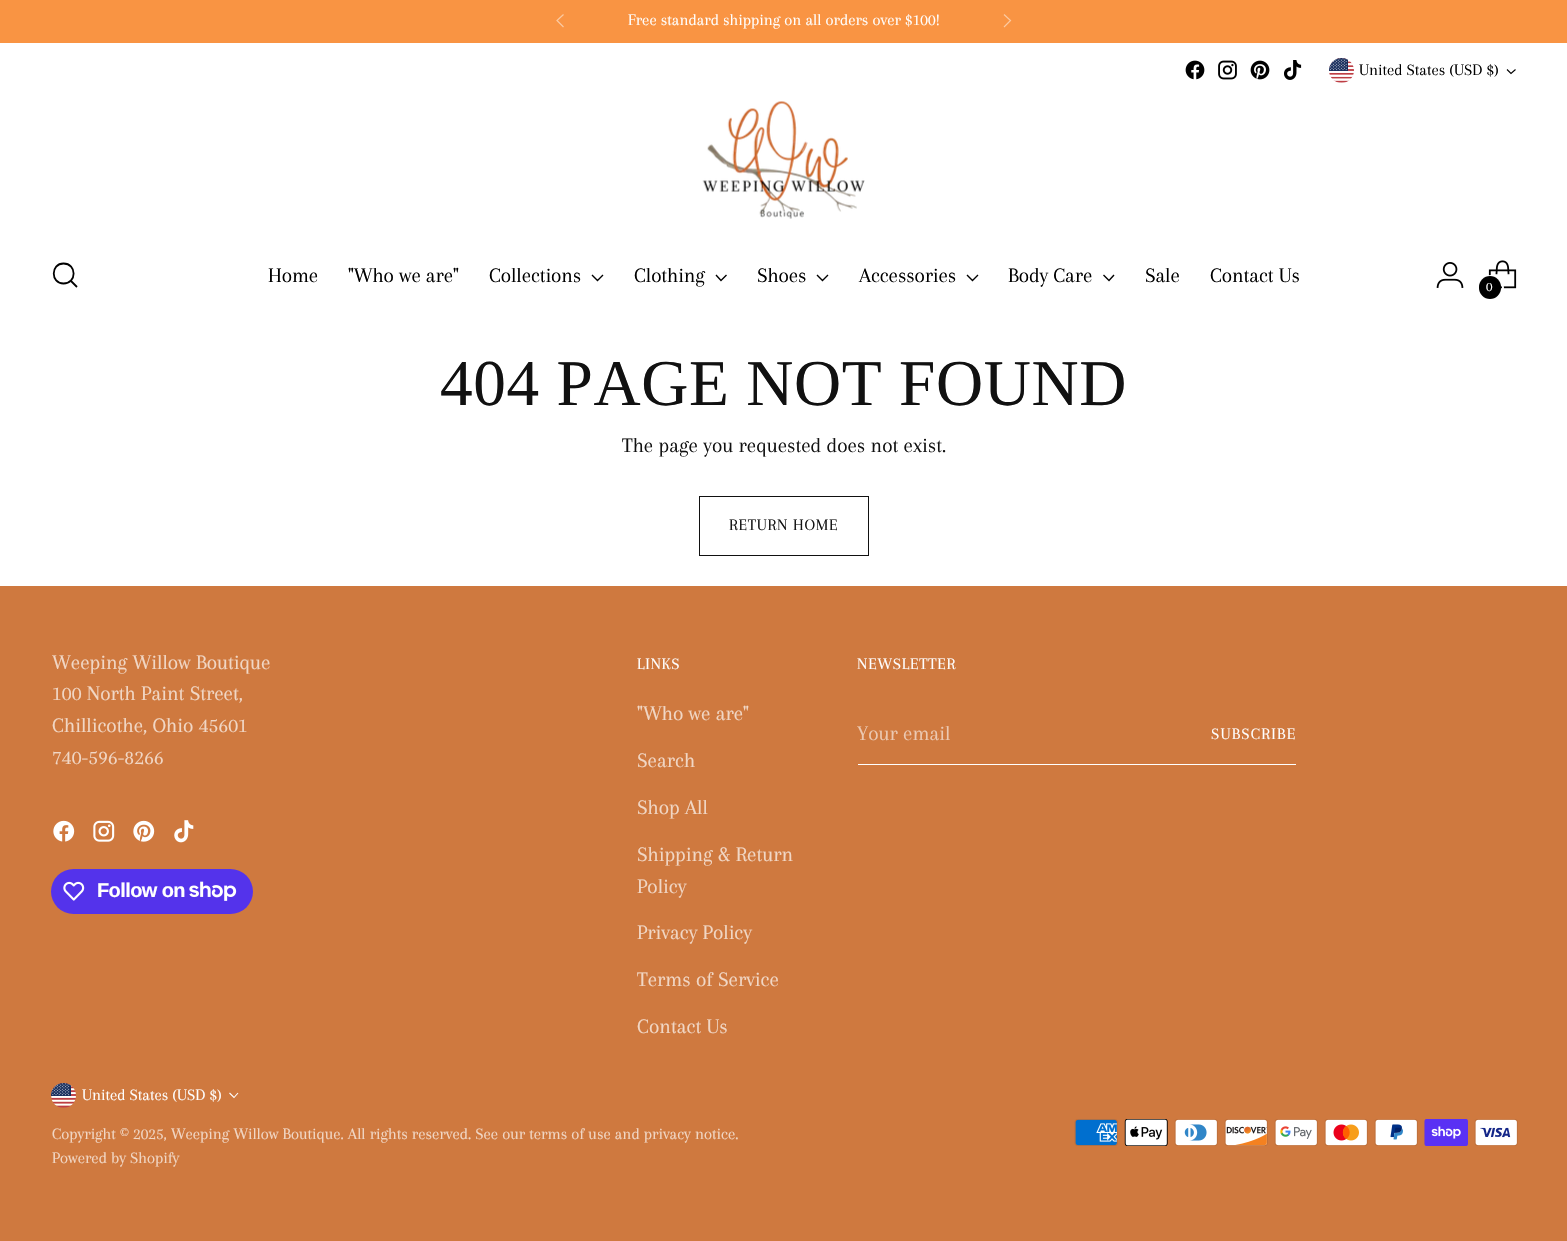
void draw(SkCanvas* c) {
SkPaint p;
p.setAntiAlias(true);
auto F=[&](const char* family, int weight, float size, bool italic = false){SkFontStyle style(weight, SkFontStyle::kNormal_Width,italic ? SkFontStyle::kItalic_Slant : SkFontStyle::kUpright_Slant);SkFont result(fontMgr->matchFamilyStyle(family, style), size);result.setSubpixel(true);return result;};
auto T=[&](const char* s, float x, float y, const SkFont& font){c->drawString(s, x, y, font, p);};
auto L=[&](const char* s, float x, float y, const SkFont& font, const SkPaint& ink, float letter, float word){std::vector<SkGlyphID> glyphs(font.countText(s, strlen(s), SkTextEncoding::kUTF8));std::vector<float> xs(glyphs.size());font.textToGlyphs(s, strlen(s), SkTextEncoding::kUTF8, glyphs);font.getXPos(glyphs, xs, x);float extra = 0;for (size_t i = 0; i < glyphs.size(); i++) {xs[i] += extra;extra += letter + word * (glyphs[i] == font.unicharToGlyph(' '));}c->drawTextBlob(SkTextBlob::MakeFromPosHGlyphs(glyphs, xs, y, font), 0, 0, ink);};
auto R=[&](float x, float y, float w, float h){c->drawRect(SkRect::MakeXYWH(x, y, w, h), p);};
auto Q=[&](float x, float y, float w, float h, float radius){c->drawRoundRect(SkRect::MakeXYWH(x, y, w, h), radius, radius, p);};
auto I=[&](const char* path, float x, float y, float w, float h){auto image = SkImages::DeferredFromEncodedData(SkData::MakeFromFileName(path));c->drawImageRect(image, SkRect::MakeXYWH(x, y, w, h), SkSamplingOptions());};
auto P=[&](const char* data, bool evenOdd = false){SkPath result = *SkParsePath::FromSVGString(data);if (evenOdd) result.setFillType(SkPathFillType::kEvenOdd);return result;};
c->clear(0xffffffff);
p.setColor(0xfff99443);
R(0,0,1567,43);
p.setStroke(true);
p.setStrokeWidth(1.2);
p.setColor(0xfffccaa1);
c->drawPath(P("M563.5 14.5l-6.5 6l6.5 6.5"),p);
c->drawPath(P("M1004 27l6.5-6.5l-6.5-6"),p);
auto f1 = F("Arapey",400,16.5);
p.setStroke(false);
p.setColor(0xffffffff);
T("Free standard shipping on all orders over $100!",628,25,f1);
I("1.png",1185,60,20,20);
I("2.png",1218,60,19,20);
I("3.png",1250,60,20,20);
I("4.png",1284,60,18,20);
I("5.png",1329,58,25,25);
p.setColor(0xff000000);
T("United States (USD $)",1359,75,f1);
p.setStroke(true);
p.setStrokeWidth(1.1);
c->drawPath(P("M1507 69.5l4 4l4.5-4"),p);
I("6.png",702,101,163,118);
p.setStrokeWidth(1.8);
p.setStrokeCap(SkPaint::kRound_Cap);
c->drawPath(P("M63.5 283.5c13.5 0 13.5-20 0-20c-13 0-13 20 0 20z"),p);
p.setStrokeCap(SkPaint::kButt_Cap);
c->drawPath(P("M71 281l6 6"),p);
auto f2 = F("Arapey",400,21.25);
p.setStroke(false);
L("Home",268,282,f2,p,-.1,0);
L("\"Who we are\"",348,282,f2,p,-.1,0);
L("Collections",489,282,f2,p,-.1,0);
p.setStroke(true);
p.setStrokeWidth(1.4);
c->drawPath(P("M592 275l5.5 5.5l5.5-5.5"),p);
p.setStroke(false);
L("Clothing",634,282,f2,p,-.1,0);
p.setStroke(true);
c->drawPath(P("M716 275l5 5.5l5.5-5.5"),p);
p.setStroke(false);
L("Shoes",757,282,f2,p,-.1,0);
p.setStroke(true);
c->drawPath(P("M817 275l5.5 5.5l5.5-5.5"),p);
p.setStroke(false);
L("Accessories",859,282,f2,p,-.1,0);
p.setStroke(true);
c->drawPath(P("M967 275l5.5 5.5l5.5-5.5"),p);
p.setStroke(false);
L("Body Care",1008,282,f2,p,-.1,0);
p.setStroke(true);
c->drawPath(P("M1103.5 275l5.5 5.5l5-5.5"),p);
p.setStroke(false);
L("Sale",1145,282,f2,p,-.1,0);
L("Contact Us",1210,282,f2,p,-.1,0);
I("7.png",1436,262,28,26);
I("8.png",1488,260,29,29);
p.setStroke(true);
p.setStrokeWidth(2);
p.setColor(0xffffffff);
c->drawCircle(1491,288,12,p);
p.setStroke(false);
p.setColor(0xff000000);
Q(1479,276,22,23,11);
auto f3 = F("Arapey",400,14);
p.setColor(0xffffffff);
T("0",1486,291,f3);
auto f4 = F("Liberation Serif",400,65.25);
p.setColor(0xff111111);
L("404 PAGE NOT FOUND",440,405,f4,p,.6,0);
T("The page you requested does not exist.",622,452,f2);
p.setStroke(true);
p.setStrokeWidth(1);
c->drawRect(SkRect::MakeXYWH(699.5,496.5,169,59),p);
p.setStroke(false);
L("RETURN HOME",729,530,f1,p,.75,0);
p.setColor(0xffcf793f);
R(0,586,1567,655);
p.setColor(0xfff1d7c5);
T("Weeping Willow Boutique",52,669,f2);
T("100 North Paint Street,",52,700,f2);
T("Chillicothe, Ohio 45601",52,732,f2);
T("740-596-8266",52,764,f2);
I("9.png",53,820,22,22);
I("10.png",93,820,22,22);
I("11.png",133,820,22,22);
I("12.png",174,820,20,23);
p.setColor(0xff5433eb);
Q(51,869,202,45,22.5);
I("13.png",63,881,22,20);
auto f5 = F("Liberation Sans",700,20);
p.setColor(0xffffffff);
L("Follow on",97,897,f5,p,-.6,0);
I("14.png",189,881,48,20);
L("LINKS",637,669,f1,p,.75,0);
p.setColor(0xfff1d7c5);
T("\"Who we are\"",637,720,f2);
T("Search",637,767,f2);
T("Shop All",637,814,f2);
T("Shipping & Return",637,861,f2);
T("Policy",637,893,f2);
T("Privacy Policy",637,939,f2);
T("Terms of Service",637,986,f2);
T("Contact Us",637,1033,f2);
p.setColor(0xffffffff);
L("NEWSLETTER",857,669,f1,p,.75,0);
R(858,764,438,1);
p.setColor(0xffecc9b2);
T("Your email",857,740,f2);
p.setColor(0xffffffff);
L("SUBSCRIBE",1211,739,f1,p,1.25,0);
I("15.png",51,1083,25,25);
T("United States (USD $)",82,1100,f1);
p.setStroke(true);
p.setStrokeWidth(1.1);
c->drawPath(P("M229.5 1093l4.5 4.5l4-4.5"),p);
p.setStroke(false);
p.setColor(0xfff1d7c5);
T("Copyright © 2025, Weeping Willow Boutique. All rights reserved. See our terms of use and privacy notice.",52,1139,f1);
T("Powered by Shopify",52,1163,f1);
I("16.png",1074,1119,44,27);
I("17.png",1124,1119,44,27);
I("18.png",1174,1119,44,27);
I("19.png",1224,1119,44,27);
I("20.png",1274,1119,44,27);
I("21.png",1324,1119,44,27);
I("22.png",1374,1119,44,27);
I("23.png",1424,1119,44,27);
I("24.png",1474,1119,44,27);
}
